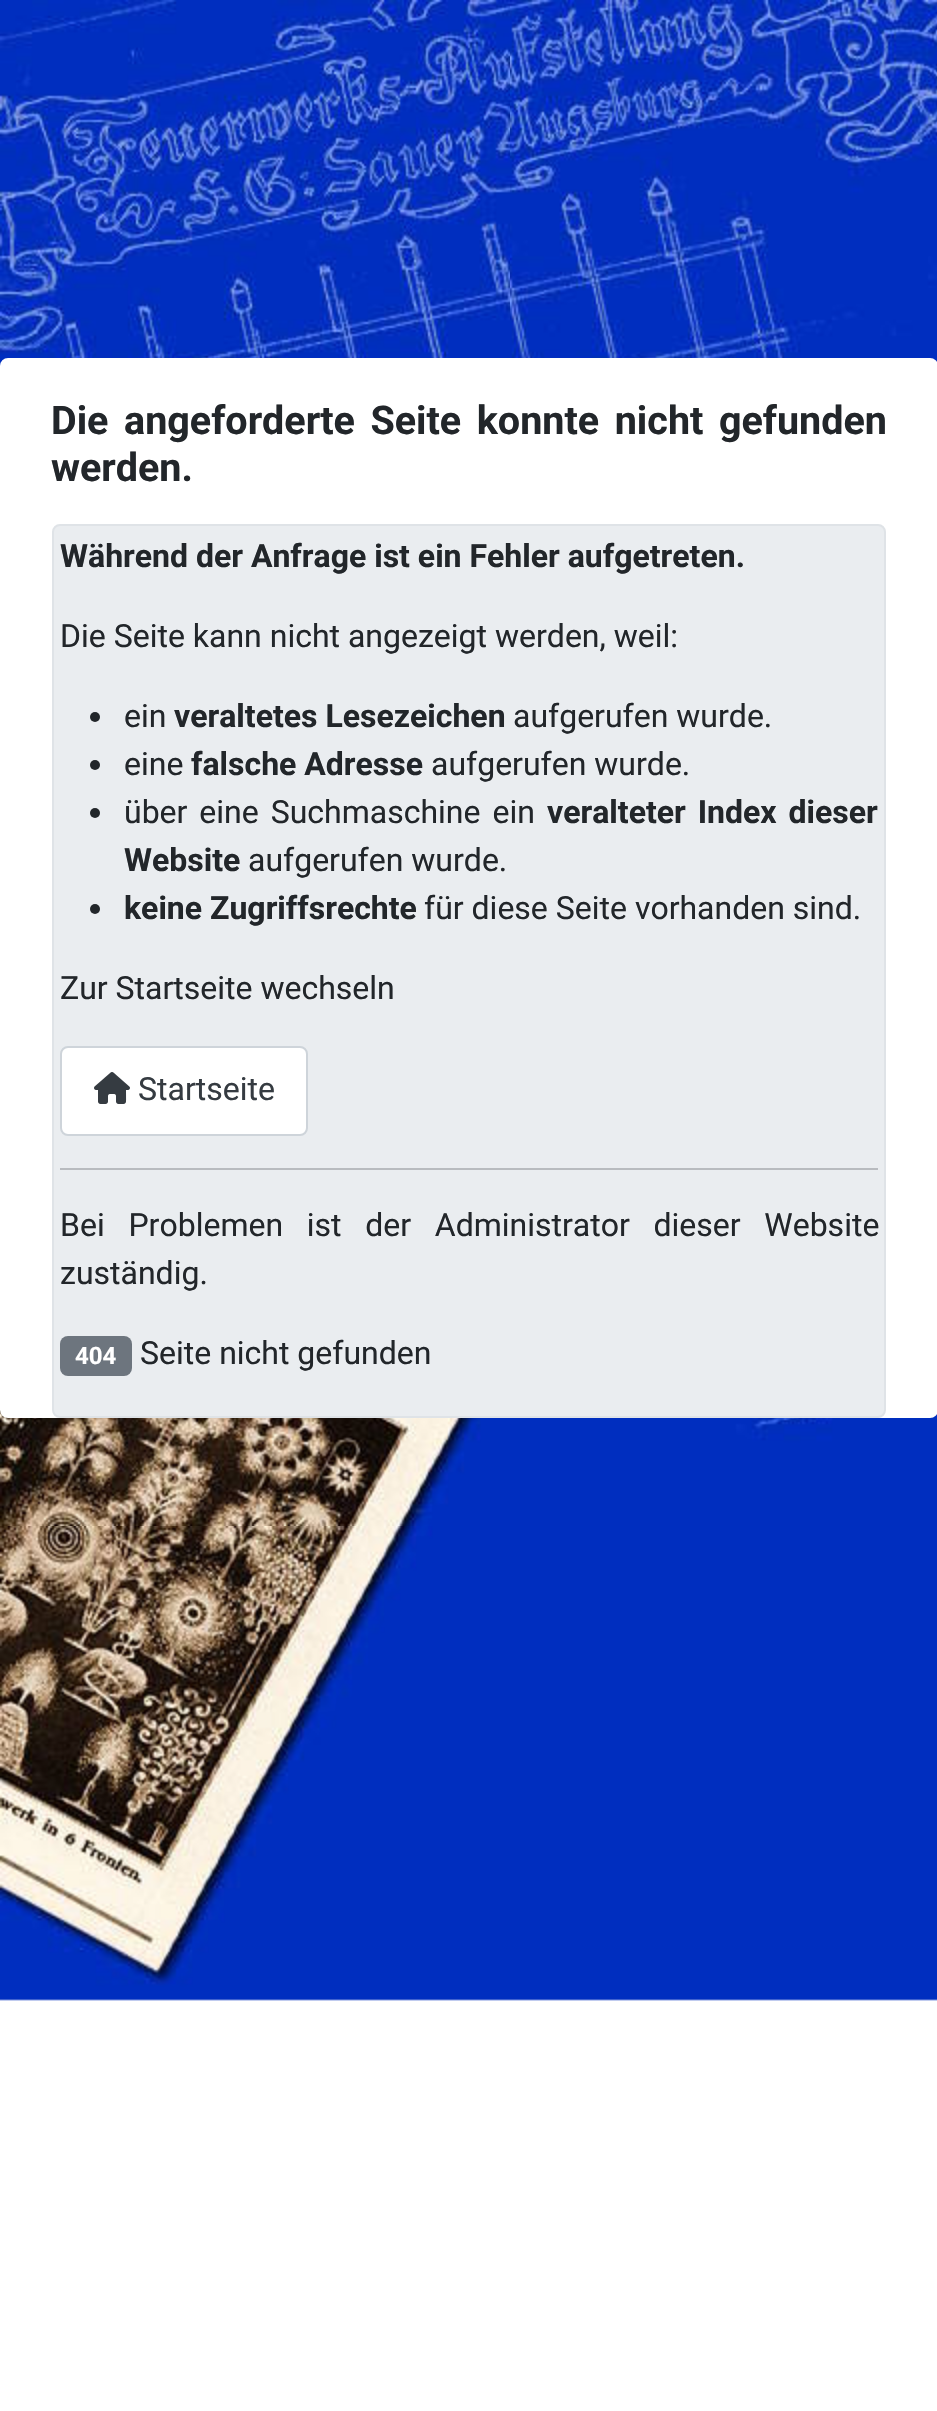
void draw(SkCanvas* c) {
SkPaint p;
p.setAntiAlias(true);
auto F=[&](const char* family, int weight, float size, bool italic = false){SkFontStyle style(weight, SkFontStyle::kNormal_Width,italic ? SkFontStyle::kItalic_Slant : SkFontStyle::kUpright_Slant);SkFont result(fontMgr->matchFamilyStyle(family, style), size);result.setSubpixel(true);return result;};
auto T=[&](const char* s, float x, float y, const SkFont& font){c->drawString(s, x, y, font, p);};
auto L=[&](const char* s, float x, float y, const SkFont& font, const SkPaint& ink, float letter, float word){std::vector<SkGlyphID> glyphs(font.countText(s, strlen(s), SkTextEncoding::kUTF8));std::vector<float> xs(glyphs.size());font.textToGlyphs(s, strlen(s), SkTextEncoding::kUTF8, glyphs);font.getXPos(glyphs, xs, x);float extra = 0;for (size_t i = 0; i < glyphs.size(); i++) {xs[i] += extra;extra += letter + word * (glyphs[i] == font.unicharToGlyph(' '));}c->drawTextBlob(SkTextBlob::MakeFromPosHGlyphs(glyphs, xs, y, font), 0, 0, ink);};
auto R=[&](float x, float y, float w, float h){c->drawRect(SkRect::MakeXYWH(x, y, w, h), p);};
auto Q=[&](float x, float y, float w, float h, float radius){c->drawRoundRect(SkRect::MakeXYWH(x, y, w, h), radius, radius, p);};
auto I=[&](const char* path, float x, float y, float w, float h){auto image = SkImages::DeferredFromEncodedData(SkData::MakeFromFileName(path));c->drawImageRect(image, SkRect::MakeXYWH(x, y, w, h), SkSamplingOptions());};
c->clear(0xffffffff);
I("1.png",0,0,937,2001);
p.setColor(0xffffffff);
Q(0,358,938,1060,8);
auto f1 = F("Roboto",700,39.5);
p.setColor(0xff22262a);
L("Die angeforderte Seite konnte nicht gefunden",51,434,f1,p,0,5.75);
T("werden.",51,481,f1);
p.setColor(0xffeaedf0);
c->drawRoundRect(SkRect::MakeXYWH(53,525,832,892),7,7,p);
p.setStroke(true);
p.setStrokeWidth(2);
p.setColor(0xffdfe3e7);
c->drawRoundRect(SkRect::MakeXYWH(53,525,832,892),7,7,p);
auto f2 = F("Roboto",700,32);
p.setStroke(false);
p.setColor(0xff22262a);
T("Während der Anfrage ist ein Fehler aufgetreten.",60,567,f2);
auto f3 = F("Roboto",400,32);
T("Die Seite kann nicht angezeigt werden, weil:",60,647,f3);
c->drawCircle(95,717,5,p);
T("ein",124,727,f3);
T("veraltetes Lesezeichen",174,727,f2);
T("aufgerufen wurde.",513,727,f3);
c->drawCircle(95,765,5,p);
T("eine",124,775,f3);
T("falsche Adresse",191,775,f2);
T("aufgerufen wurde.",431,775,f3);
c->drawCircle(95,813,5,p);
L("über eine Suchmaschine ein",124,823,f3,p,0,4);
L("veralteter Index dieser",547,823,f2,p,0,4);
T("Website",124,871,f2);
T("aufgerufen wurde.",248,871,f3);
c->drawCircle(95,909,5,p);
T("keine Zugriffsrechte",124,919,f2);
T("für diese Seite vorhanden sind.",424,919,f3);
T("Zur Startseite wechseln",60,999,f3);
p.setColor(0xffffffff);
c->drawRoundRect(SkRect::MakeXYWH(61,1047,246,88),7,7,p);
p.setStroke(true);
p.setColor(0xffced4da);
c->drawRoundRect(SkRect::MakeXYWH(61,1047,246,88),7,7,p);
I("2.png",94,1072,36,32);
p.setStroke(false);
p.setColor(0xff353b41);
T("Startseite",138,1100,f3);
p.setColor(0xffb8bbbf);
R(60,1168,818,2);
p.setColor(0xff22262a);
L("Bei Problemen ist der Administrator dieser Website",60,1236,f3,p,0,15.75);
T("zuständig.",60,1284,f3);
p.setColor(0xff6d757e);
Q(60,1336,72,40,8);
auto f4 = F("Roboto",700,24);
p.setColor(0xffffffff);
T("404",75,1364,f4);
p.setColor(0xff22262a);
T("Seite nicht gefunden",140,1364,f3);
}
